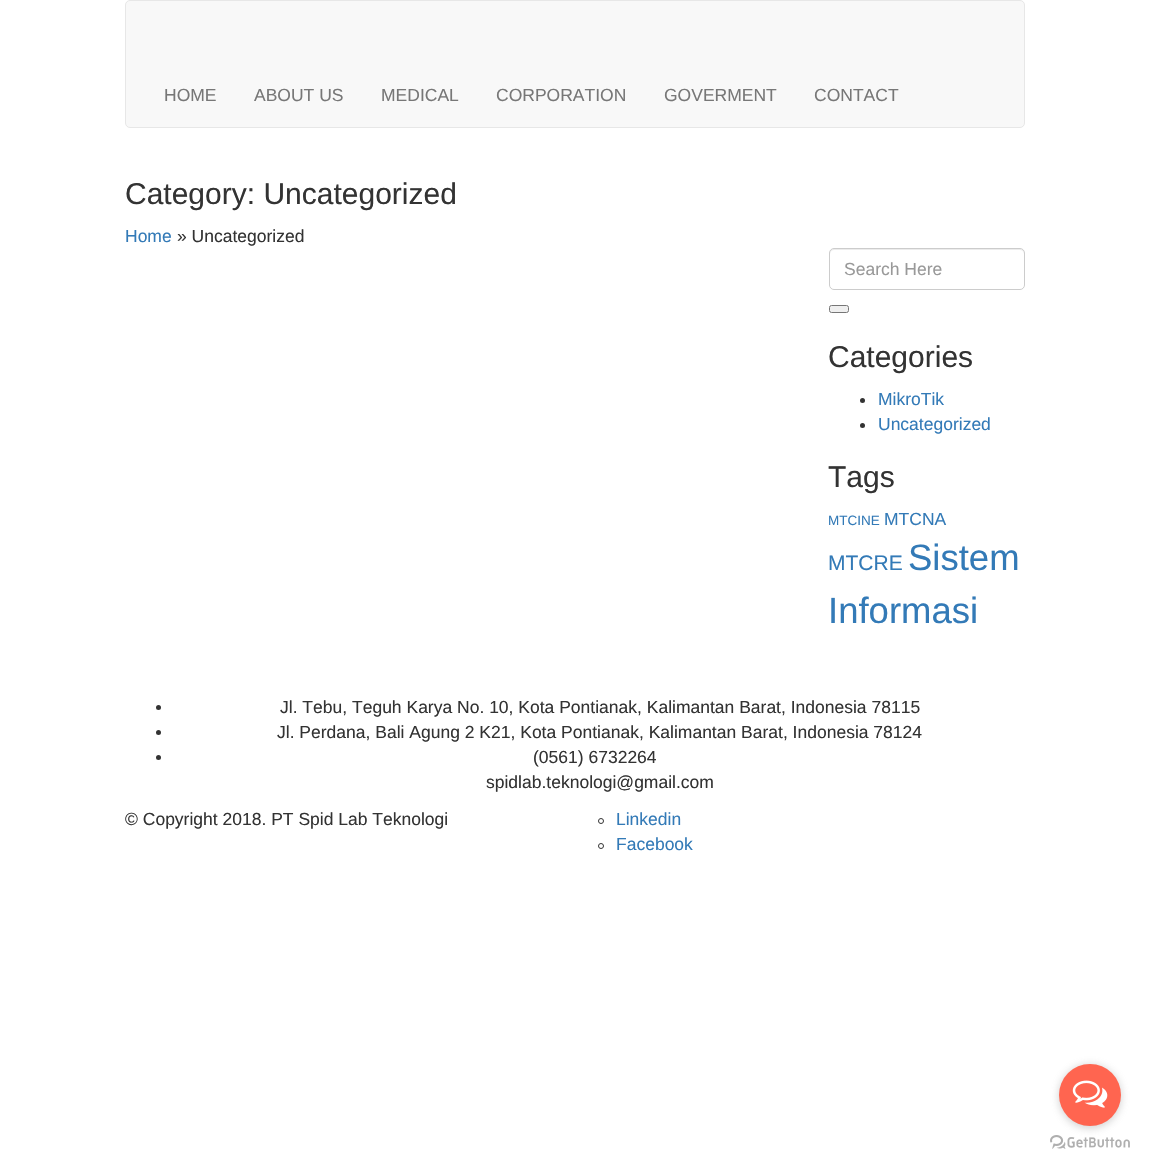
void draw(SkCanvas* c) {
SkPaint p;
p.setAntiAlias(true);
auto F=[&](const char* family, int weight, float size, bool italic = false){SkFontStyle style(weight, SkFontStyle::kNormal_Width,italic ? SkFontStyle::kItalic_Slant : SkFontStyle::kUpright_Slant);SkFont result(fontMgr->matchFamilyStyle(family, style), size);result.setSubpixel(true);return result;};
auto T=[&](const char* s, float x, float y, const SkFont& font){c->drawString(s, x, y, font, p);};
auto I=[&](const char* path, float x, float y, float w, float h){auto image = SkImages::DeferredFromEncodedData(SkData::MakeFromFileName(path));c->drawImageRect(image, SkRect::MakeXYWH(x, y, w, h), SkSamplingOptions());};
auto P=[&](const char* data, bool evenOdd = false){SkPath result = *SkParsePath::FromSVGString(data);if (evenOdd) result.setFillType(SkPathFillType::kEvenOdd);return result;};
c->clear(0xffffffff);
p.setColor(0xfff8f8f8);
c->drawRoundRect(SkRect::MakeXYWH(125.5,.5,899,127),4.5,4.5,p);
p.setStroke(true);
p.setStrokeWidth(1);
p.setColor(0xffe7e7e7);
c->drawRoundRect(SkRect::MakeXYWH(125.5,.5,899,127),4.5,4.5,p);
auto f1 = F("Liberation Sans",400,17.5);
p.setStroke(false);
p.setColor(0xff777777);
T("HOME",164,101,f1);
T("ABOUT US",254,101,f1);
T("MEDICAL",381,101,f1);
T("CORPORATION",496,101,f1);
T("GOVERMENT",664,101,f1);
T("CONTACT",814,101,f1);
auto f2 = F("Liberation Sans",400,30);
p.setColor(0xff333333);
T("Category: Uncategorized",125,204,f2);
p.setColor(0xff337ab7);
T("Home",125,242,f1);
p.setColor(0xff333333);
T("» Uncategorized",177,242,f1);
p.setColor(0xffececec);
c->drawPath(P("M834 250h186c2 0 4 2 4 4v-1c0-2-2-4-4-4h-186c-2 0-4 2-4 4v1c0-2 2-4 4-4z"),p);
p.setStroke(true);
p.setColor(0xffcccccc);
c->drawRoundRect(SkRect::MakeXYWH(829.5,248.5,195,41),4.5,4.5,p);
p.setStroke(false);
p.setColor(0xff999999);
T("Search Here",844,275,f1);
p.setColor(0xffefefef);
c->drawRoundRect(SkRect::MakeXYWH(829.5,305.5,19,7),2,2,p);
p.setStroke(true);
p.setColor(0xff767676);
c->drawRoundRect(SkRect::MakeXYWH(829.5,305.5,19,7),2,2,p);
p.setStroke(false);
p.setColor(0xff333333);
T("Categories",828,367,f2);
c->drawCircle(862.5,400.5,2.5,p);
p.setColor(0xff337ab7);
T("MikroTik",878,405,f1);
p.setColor(0xff333333);
c->drawCircle(862.5,425.5,2.5,p);
p.setColor(0xff337ab7);
T("Uncategorized",878,430,f1);
p.setColor(0xff333333);
T("Tags",828,487,f2);
auto f3 = F("Liberation Sans",400,13.5);
p.setColor(0xff337ab7);
T("MTCINE",828,525,f3);
T("MTCNA",884,525,f1);
auto f4 = F("Liberation Sans",400,21);
T("MTCRE",828,570,f4);
auto f5 = F("Liberation Sans",400,36.5);
T("Sistem",908,570,f5);
T("Informasi",828,623,f5);
p.setColor(0xff333333);
c->drawCircle(158.5,707.5,2.5,p);
T("Jl. Tebu, Teguh Karya No. 10, Kota Pontianak, Kalimantan Barat, Indonesia 78115",280,713,f1);
c->drawCircle(158.5,732.5,2.5,p);
T("Jl. Perdana, Bali Agung 2 K21, Kota Pontianak, Kalimantan Barat, Indonesia 78124",277,738,f1);
c->drawCircle(158.5,757.5,2.5,p);
T("(0561) 6732264",533,763,f1);
T("spidlab.teknologi@gmail.com",486,788,f1);
T("© Copyright 2018. PT Spid Lab Teknologi",125,825,f1);
p.setStroke(true);
c->drawCircle(601,821,2.5,p);
p.setStroke(false);
p.setColor(0xff337ab7);
T("Linkedin",616,825,f1);
p.setStroke(true);
p.setColor(0xff333333);
c->drawCircle(601,846,2.5,p);
p.setStroke(false);
p.setColor(0xff337ab7);
T("Facebook",616,850,f1);
I("2.png",1050,1135,80,14);
p.setColor(0x66888888);
p.setMaskFilter(SkMaskFilter::MakeBlur(kNormal_SkBlurStyle, 4.5));
c->drawRoundRect(SkRect::MakeXYWH(1059,1065,62,63),31,31,p);
p.setMaskFilter(nullptr);
p.setColor(0xffff6550);
c->drawCircle(1090,1095,31,p);
I("1.png",1072,1080,36,28);
}
